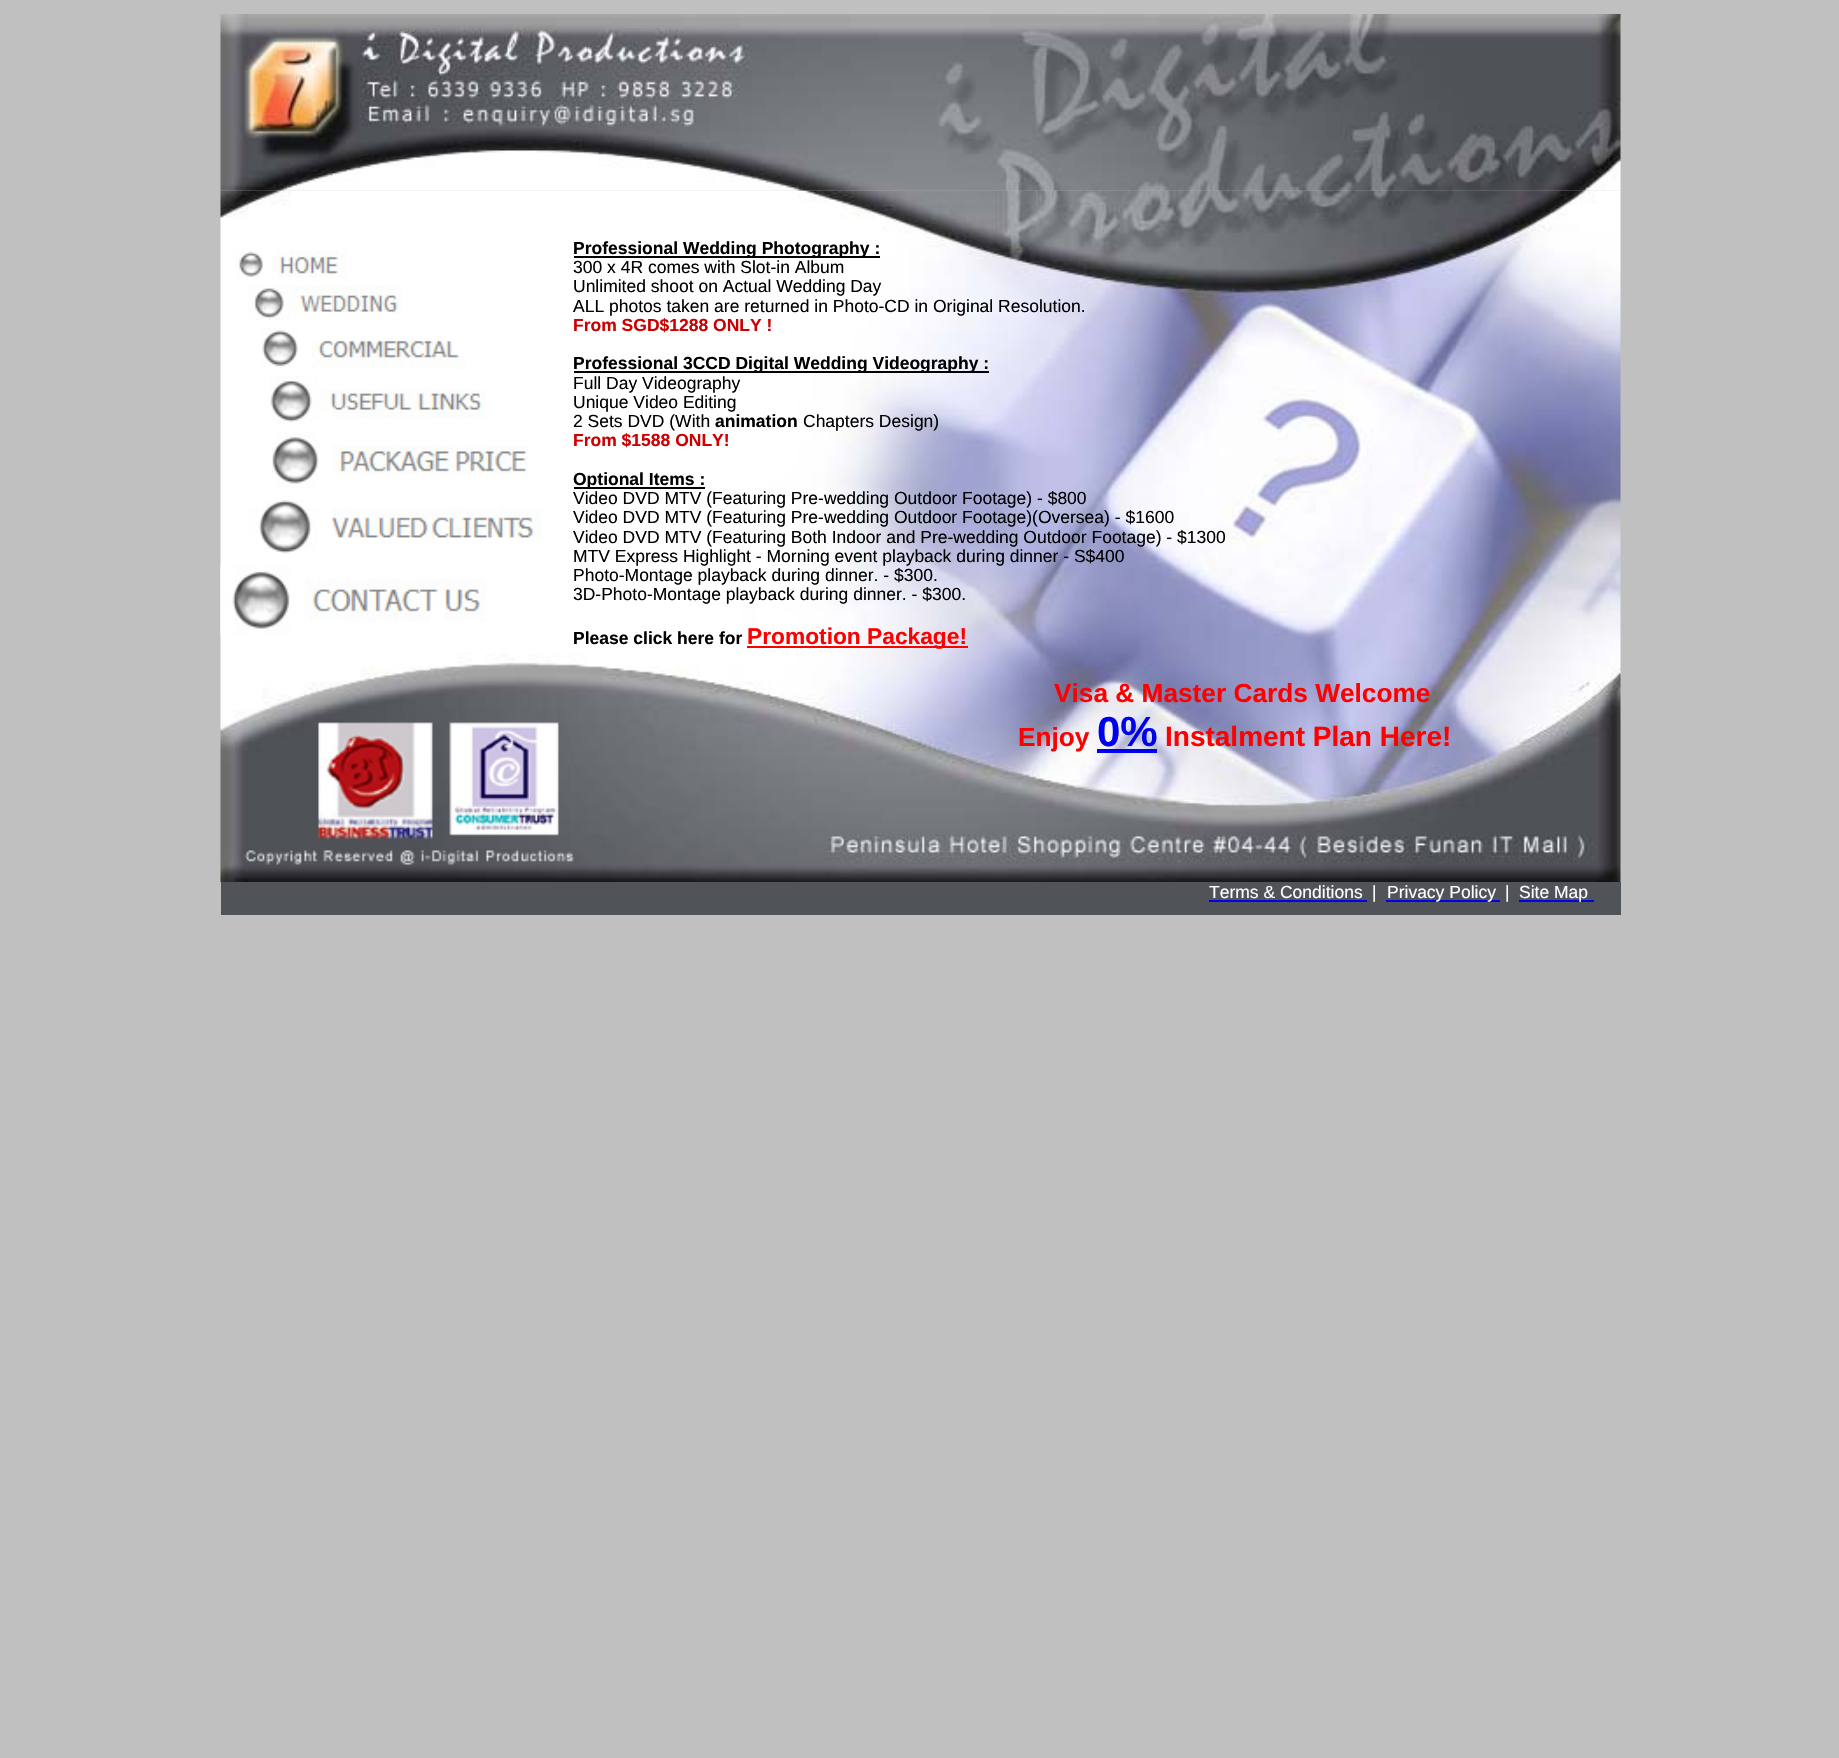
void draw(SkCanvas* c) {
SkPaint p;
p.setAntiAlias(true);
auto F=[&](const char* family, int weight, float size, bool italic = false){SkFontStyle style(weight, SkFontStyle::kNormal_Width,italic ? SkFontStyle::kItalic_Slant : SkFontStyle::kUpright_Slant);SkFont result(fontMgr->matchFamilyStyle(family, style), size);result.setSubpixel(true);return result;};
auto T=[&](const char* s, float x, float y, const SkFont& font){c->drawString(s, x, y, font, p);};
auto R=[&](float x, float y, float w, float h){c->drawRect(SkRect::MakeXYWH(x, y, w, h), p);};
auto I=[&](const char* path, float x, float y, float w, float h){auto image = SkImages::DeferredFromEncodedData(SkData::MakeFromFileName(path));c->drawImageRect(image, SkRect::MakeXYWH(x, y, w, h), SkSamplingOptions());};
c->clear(0xffc0c0c0);
I("1.png",220,14,1401,177);
I("2.png",220,190,354,692);
I("3.png",235,250,112,28);
I("4.png",248,285,154,35);
I("5.png",261,328,205,41);
I("6.png",270,376,217,49);
I("7.png",271,432,258,56);
I("8.png",249,500,293,54);
I("9.png",220,565,267,70);
I("10.png",574,190,1047,692);
p.setColor(0xff000000);
R(574,256,306,2);
auto f1 = F("Liberation Sans",700,17.5);
T("Professional Wedding Photography :",573,254,f1);
auto f2 = F("Liberation Sans",400,17.5);
T("300 x 4R comes with Slot-in Album",573,273,f2);
T("Unlimited shoot on Actual Wedding Day",573,292,f2);
T("ALL photos taken are returned in Photo-CD in Original Resolution.",573,312,f2);
p.setColor(0xffcc0000);
T("From SGD$1288 ONLY !",573,331,f1);
p.setColor(0xff000000);
R(574,371,415,2);
T("Professional 3CCD Digital Wedding Videography :",573,369,f1);
T("Full Day Videography",573,389,f2);
T("Unique Video Editing",573,408,f2);
T("2 Sets DVD (With",573,427,f2);
T("animation",715,427,f1);
T("Chapters Design)",803,427,f2);
p.setColor(0xffcc0000);
T("From $1588 ONLY!",573,446,f1);
p.setColor(0xff000000);
R(574,487,131,2);
T("Optional Items :",573,485,f1);
T("Video DVD MTV (Featuring Pre-wedding Outdoor Footage) - $800",573,504,f2);
T("Video DVD MTV (Featuring Pre-wedding Outdoor Footage)(Oversea) - $1600",573,523,f2);
T("Video DVD MTV (Featuring Both Indoor and Pre-wedding Outdoor Footage) - $1300",573,543,f2);
T("MTV Express Highlight - Morning event playback during dinner - S$400",573,562,f2);
T("Photo-Montage playback during dinner. - $300.",573,581,f2);
T("3D-Photo-Montage playback during dinner. - $300.",573,600,f2);
T("Please click here for",573,644,f1);
p.setColor(0xffff0000);
R(747,646,221,2);
auto f3 = F("Liberation Sans",700,22.75);
T("Promotion Package!",747,644,f3);
auto f4 = F("Liberation Sans",700,26.25);
T("Visa & Master Cards Welcome",1054,702,f4);
T("Enjoy",1018,746,f4);
p.setColor(0xff0000ee);
R(1097,749,60,4);
auto f5 = F("Liberation Sans",700,42);
T("0%",1097,746,f5);
auto f6 = F("Liberation Sans",700,28);
p.setColor(0xffff0000);
T("Instalment Plan Here!",1165,746,f6);
p.setColor(0xff505358);
R(221,882,1400,33);
p.setColor(0xffffffff);
T("Terms & Conditions",1209,898,f2);
p.setColor(0xff0000ee);
R(1209,900,158,2);
p.setColor(0xffffffff);
T("|",1372,898,f2);
p.setColor(0xff0000ee);
R(1386,900,114,2);
p.setColor(0xffffffff);
T("Privacy Policy",1387,898,f2);
T("|",1505,898,f2);
p.setColor(0xff0000ee);
R(1519,900,75,2);
p.setColor(0xffffffff);
T("Site Map",1519,898,f2);
}
